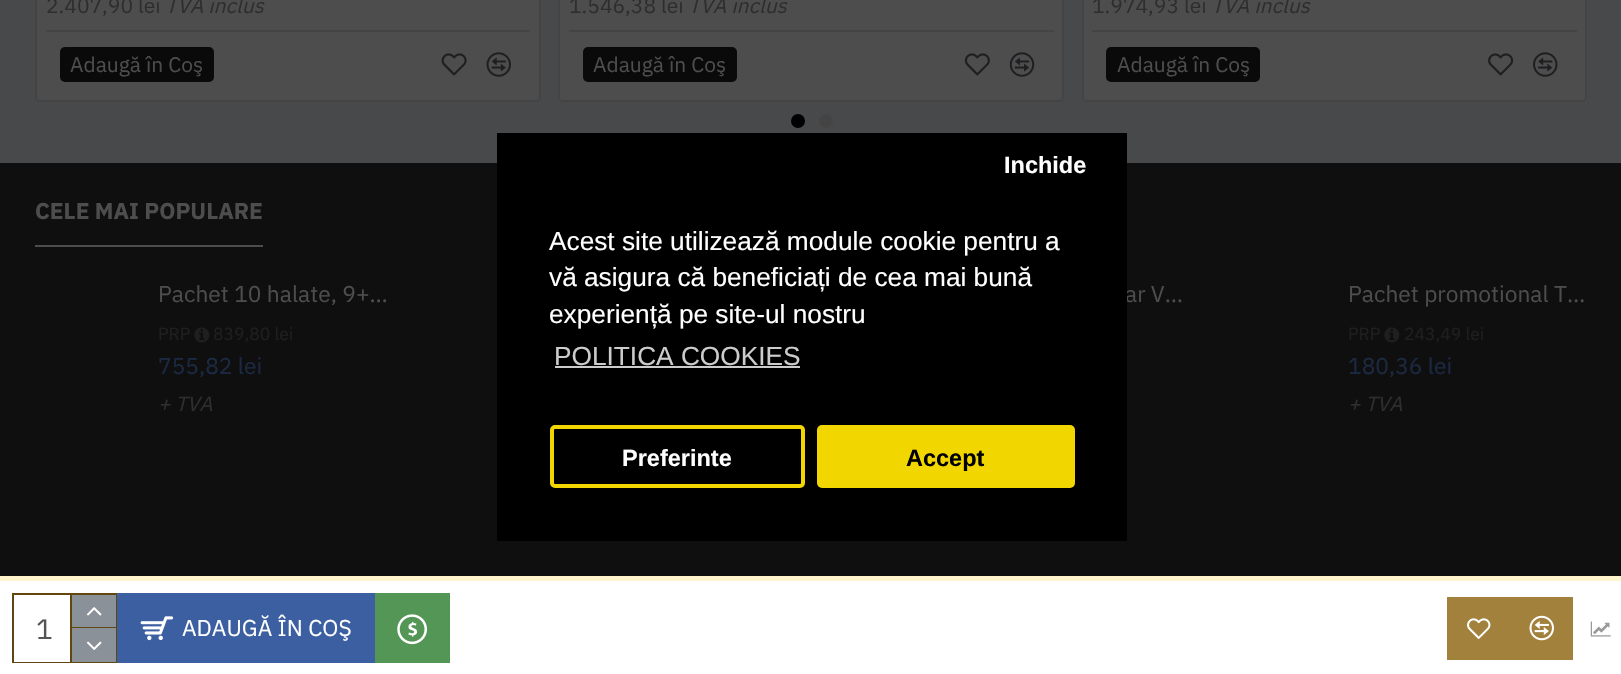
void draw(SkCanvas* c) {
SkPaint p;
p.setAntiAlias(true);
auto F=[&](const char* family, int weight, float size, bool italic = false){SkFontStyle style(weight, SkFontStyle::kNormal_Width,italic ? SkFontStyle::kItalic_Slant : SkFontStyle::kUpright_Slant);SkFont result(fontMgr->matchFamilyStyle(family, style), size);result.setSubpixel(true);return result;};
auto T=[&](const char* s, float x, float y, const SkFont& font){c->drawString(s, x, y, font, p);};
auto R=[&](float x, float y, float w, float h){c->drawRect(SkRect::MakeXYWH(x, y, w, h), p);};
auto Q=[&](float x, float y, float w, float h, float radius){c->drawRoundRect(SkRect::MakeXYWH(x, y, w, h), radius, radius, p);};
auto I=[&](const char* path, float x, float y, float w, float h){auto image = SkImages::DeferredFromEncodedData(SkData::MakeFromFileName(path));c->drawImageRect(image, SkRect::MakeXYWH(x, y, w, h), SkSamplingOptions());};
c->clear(0xff48494a);
p.setColor(0xff4d4d4d);
c->drawRoundRect(SkRect::MakeXYWH(36,-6,504,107),4,4,p);
p.setStroke(true);
p.setStrokeWidth(2);
p.setColor(0xff444444);
c->drawRoundRect(SkRect::MakeXYWH(36,-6,504,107),4,4,p);
auto f1 = F("IBM Plex Sans",400,21);
p.setStroke(false);
p.setColor(0xff2e2e2e);
T("2.407,90 lei",46,13,f1);
auto f2 = F("IBM Plex Sans",400,21,true);
T("TVA inclus",165,13,f2);
p.setColor(0xff444444);
R(46,30,484,2);
p.setColor(0xff0a0a0a);
Q(60,47,154,35,5);
p.setColor(0xff4d4d4d);
T("Adaugă în Coş",70,72,f1);
I("1.png",441,53,26,23);
I("2.png",486,52,25,25);
c->drawRoundRect(SkRect::MakeXYWH(559,-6,504,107),4,4,p);
p.setStroke(true);
p.setColor(0xff444444);
c->drawRoundRect(SkRect::MakeXYWH(559,-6,504,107),4,4,p);
p.setStroke(false);
p.setColor(0xff2e2e2e);
T("1.546,38 lei",569,13,f1);
T("TVA inclus",688,13,f2);
p.setColor(0xff444444);
R(569,30,485,2);
p.setColor(0xff0a0a0a);
Q(583,47,154,35,5);
p.setColor(0xff4d4d4d);
T("Adaugă în Coş",593,72,f1);
I("3.png",964,53,26,23);
I("4.png",1009,52,26,25);
c->drawRoundRect(SkRect::MakeXYWH(1083,-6,503,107),4,4,p);
p.setStroke(true);
p.setColor(0xff444444);
c->drawRoundRect(SkRect::MakeXYWH(1083,-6,503,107),4,4,p);
p.setStroke(false);
p.setColor(0xff2e2e2e);
T("1.974,93 lei",1092,13,f1);
T("TVA inclus",1211,13,f2);
p.setColor(0xff444444);
R(1092,30,485,2);
p.setColor(0xff0a0a0a);
Q(1106,47,154,35,5);
p.setColor(0xff4d4d4d);
T("Adaugă în Coş",1117,72,f1);
I("5.png",1488,53,26,23);
I("6.png",1533,52,25,25);
p.setColor(0xff000000);
c->drawCircle(798,121,7,p);
p.setColor(0xff444444);
c->drawCircle(826,121,7,p);
p.setColor(0xff0f0f0f);
R(0,163,1621,413);
p.setColor(0xff4d4d4d);
R(35,245,228,2);
auto f3 = F("IBM Plex Sans",700,22.75);
T("CELE MAI POPULARE",35,219,f3);
auto f4 = F("IBM Plex Sans",400,22.75);
T("Pachet 10 halate, 9+…",158,302,f4);
auto f5 = F("IBM Plex Sans",400,17.5);
p.setColor(0xff1f1f1f);
T("PRP",158,340,f5);
I("7.png",194,327,16,16);
T("839,80 lei",213,340,f5);
p.setColor(0xff1b2943);
T("755,82 lei",158,374,f4);
auto f6 = F("IBM Plex Sans",400,20.5,true);
p.setColor(0xff2e2e2e);
T("+ TVA",158,411,f6);
p.setColor(0xff4d4d4d);
T("ar V…",1125,302,f4);
T("Pachet promotional T…",1348,302,f4);
p.setColor(0xff1f1f1f);
T("PRP",1348,340,f5);
I("7.png",1384,327,16,16);
T("243,49 lei",1404,340,f5);
p.setColor(0xff1b2943);
T("180,36 lei",1348,374,f4);
p.setColor(0xff2e2e2e);
T("+ TVA",1348,411,f6);
p.setColor(0xffffffff);
R(0,581,1621,93);
p.setColor(0xfffff5cd);
R(0,576,1621,5);
p.setStroke(true);
p.setColor(0xff614610);
c->drawRect(SkRect::MakeXYWH(13,594,103,68),p);
p.setStroke(false);
p.setColor(0xffffffff);
R(14,661,56,1);
auto f7 = F("IBM Plex Sans",400,28);
p.setColor(0xff555555);
T("1",36,639,f7);
p.setColor(0xff614610);
R(70,595,2,67);
p.setColor(0xff8b9198);
R(72,595,44,32);
p.setColor(0xff614610);
R(72,627,44,1);
I("8.png",86,607,16,9);
p.setColor(0xff8b9198);
R(72,628,44,34);
I("9.png",87,641,15,9);
p.setColor(0xff3b5fa1);
R(117,593,258,70);
I("10.png",140,616,34,25);
p.setColor(0xffffffff);
T("ADAUGĂ ÎN COŞ",182,636,f4);
p.setColor(0xff539655);
R(375,593,75,70);
I("11.png",397,614,30,31);
p.setColor(0xffa1813c);
R(1447,597,126,63);
I("12.png",1467,618,24,21);
I("13.png",1529,615,25,26);
I("14.png",1590,621,21,16);
p.setColor(0xff000000);
R(497,133,630,408);
auto f8 = F("Liberation Sans",700,23.5);
p.setColor(0xffffffff);
T("Inchide",1004,173,f8);
p.setStroke(true);
p.setStrokeWidth(4);
p.setColor(0xfff1d600);
c->drawRoundRect(SkRect::MakeXYWH(552,427,251,59),3,3,p);
p.setStroke(false);
p.setColor(0xffffffff);
T("Preferinte",622,466,f8);
p.setColor(0xfff1d600);
Q(817,425,258,63,5);
p.setColor(0xff000000);
T("Accept",906,466,f8);
auto f9 = F("Liberation Sans",400,26.25);
p.setColor(0xffffffff);
T("Acest site utilizează module cookie pentru a",549,250,f9);
T("vă asigura că beneficiați de cea mai bună",549,286,f9);
T("experiență pe site-ul nostru",549,323,f9);
p.setColor(0xffcccccc);
T("POLITICA COOKIES",554,365,f9);
R(555,366,245,2);
}
